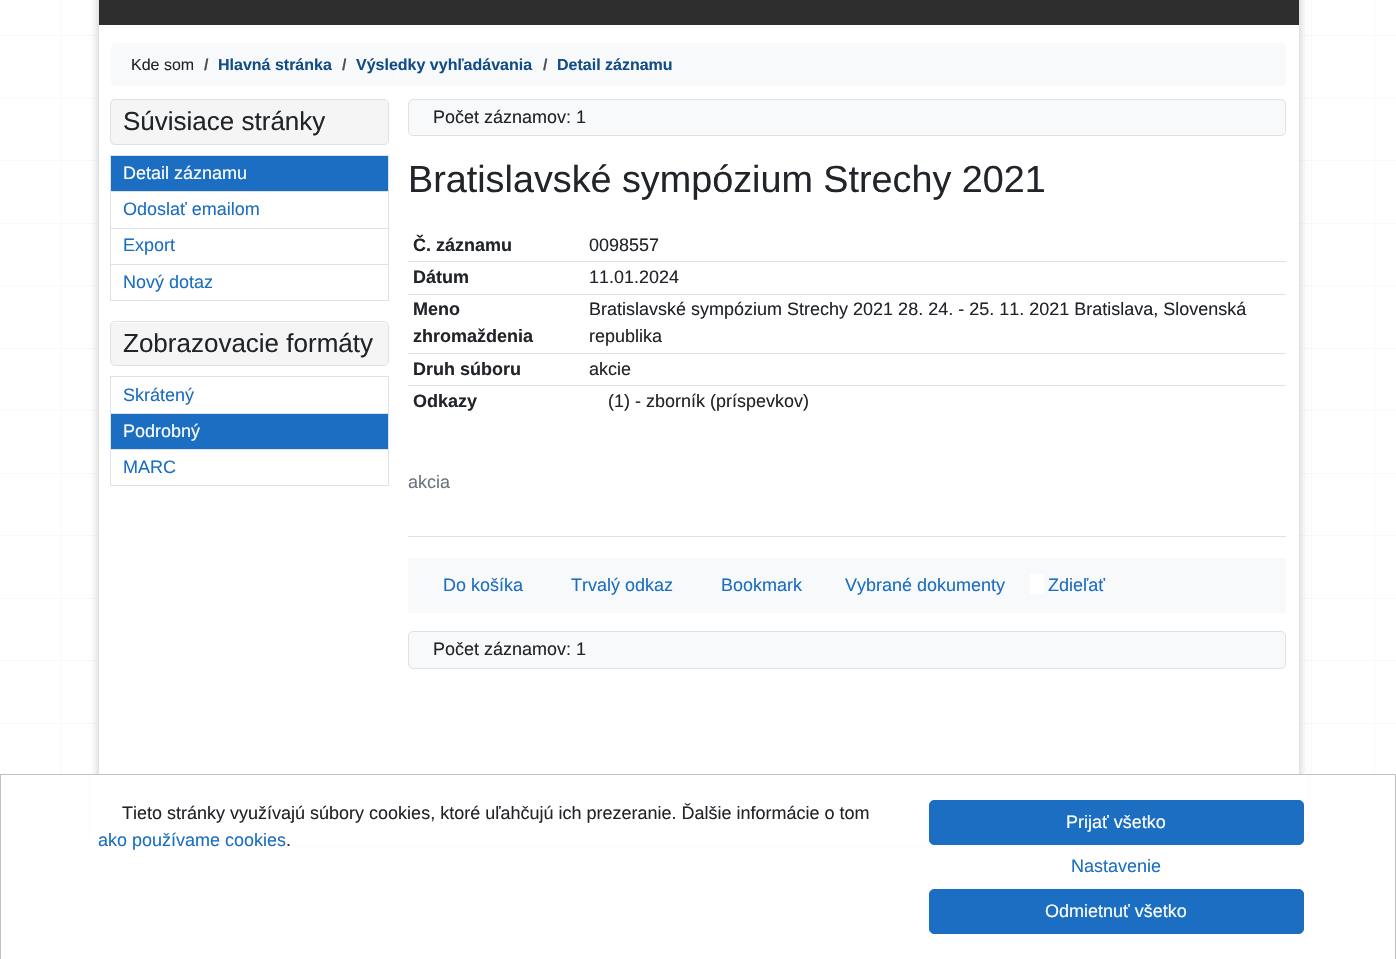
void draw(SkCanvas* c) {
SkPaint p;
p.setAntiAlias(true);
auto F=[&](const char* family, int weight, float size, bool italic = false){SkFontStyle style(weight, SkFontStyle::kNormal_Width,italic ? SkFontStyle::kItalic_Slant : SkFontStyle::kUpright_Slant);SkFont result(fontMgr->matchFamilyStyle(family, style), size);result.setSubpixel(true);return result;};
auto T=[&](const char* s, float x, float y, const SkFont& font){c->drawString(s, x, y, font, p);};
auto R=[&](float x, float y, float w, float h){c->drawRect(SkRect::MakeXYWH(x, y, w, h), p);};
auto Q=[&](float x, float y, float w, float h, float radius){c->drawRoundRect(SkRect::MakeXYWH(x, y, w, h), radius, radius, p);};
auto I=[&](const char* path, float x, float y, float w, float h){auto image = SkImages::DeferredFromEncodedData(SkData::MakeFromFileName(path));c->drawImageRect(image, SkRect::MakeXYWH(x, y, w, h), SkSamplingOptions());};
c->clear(0xffffffff);
I("1.png",61,0,1314,774);
p.setColor(0xfff8f9fa);
R(0,35,1396,1);
R(0,98,1396,1);
R(0,160,1396,1);
R(0,223,1396,1);
R(0,285,1396,1);
R(0,348,1396,1);
R(0,410,1396,1);
R(0,473,1396,1);
R(0,535,1396,1);
R(0,598,1396,1);
R(0,660,1396,1);
R(0,723,1396,1);
p.setColor(0x33000000);
p.setMaskFilter(SkMaskFilter::MakeBlur(kNormal_SkBlurStyle, 4));
c->drawRect(SkRect::MakeXYWH(98,-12,1202,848),p);
p.setMaskFilter(nullptr);
p.setColor(0xffffffff);
R(99,25,1200,749);
p.setColor(0xff2e2e2e);
R(99,0,1200,25);
p.setColor(0xfff8f9fa);
Q(111,43,1175,43,5);
auto f1 = F("Liberation Sans",400,16);
p.setColor(0xff212529);
T("Kde som",131,70,f1);
auto f2 = F("Liberation Sans",700,16);
p.setColor(0xff495057);
T("/",204,70,f2);
p.setColor(0xff134d88);
T("Hlavná stránka",218,70,f2);
p.setColor(0xff495057);
T("/",342,70,f2);
p.setColor(0xff134d88);
T("Výsledky vyhľadávania",356,70,f2);
p.setColor(0xff495057);
T("/",543,70,f2);
p.setColor(0xff134d88);
T("Detail záznamu",557,70,f2);
p.setColor(0xfff5f5f5);
c->drawRoundRect(SkRect::MakeXYWH(110.5,99.5,278,45),4.5,4.5,p);
p.setStroke(true);
p.setStrokeWidth(1);
p.setColor(0xffdee2e6);
c->drawRoundRect(SkRect::MakeXYWH(110.5,99.5,278,45),4.5,4.5,p);
auto f3 = F("Liberation Sans",400,26);
p.setStroke(false);
p.setColor(0xff212529);
T("Súvisiace stránky",123,130,f3);
p.setColor(0xffdee2e6);
R(110,155,279,1);
R(388,155,1,36);
R(110,155,1,36);
p.setColor(0xff1b6ec2);
R(111,156,277,35);
auto f4 = F("Liberation Sans",400,18);
p.setColor(0xffffffff);
T("Detail záznamu",123,179,f4);
p.setColor(0xffdee2e6);
R(110,191,279,1);
R(388,191,1,37);
R(110,191,1,37);
p.setColor(0xff1b6ec2);
T("Odoslať emailom",123,215,f4);
p.setColor(0xffdee2e6);
R(110,228,279,1);
R(388,228,1,36);
R(110,228,1,36);
p.setColor(0xff1b6ec2);
T("Export",123,251,f4);
p.setStroke(true);
p.setColor(0xffdee2e6);
c->drawRect(SkRect::MakeXYWH(110.5,264.5,278,36),p);
p.setStroke(false);
p.setColor(0xff1b6ec2);
T("Nový dotaz",123,288,f4);
p.setColor(0xfff5f5f5);
Q(111,323,277,42,4);
p.setStroke(true);
p.setColor(0xffdee2e6);
c->drawRoundRect(SkRect::MakeXYWH(110.5,321.5,278,44),4.5,4.5,p);
p.setStroke(false);
p.setColor(0xff212529);
T("Zobrazovacie formáty",123,352,f3);
p.setColor(0xffdee2e6);
R(110,376,279,1);
R(388,376,1,37);
R(110,376,1,37);
p.setColor(0xff1b6ec2);
T("Skrátený",123,401,f4);
p.setColor(0xffdee2e6);
R(110,413,279,1);
R(388,413,1,36);
R(110,413,1,36);
p.setColor(0xff1b6ec2);
R(111,414,277,35);
p.setColor(0xffffffff);
T("Podrobný",123,437,f4);
p.setStroke(true);
p.setColor(0xffdee2e6);
c->drawRect(SkRect::MakeXYWH(110.5,449.5,278,36),p);
p.setStroke(false);
p.setColor(0xff1b6ec2);
T("MARC",123,473,f4);
p.setColor(0xfff8f9fa);
Q(408,99,878,37,5);
p.setStroke(true);
p.setColor(0x1f333333);
c->drawRoundRect(SkRect::MakeXYWH(408.5,99.5,877,36),4.5,4.5,p);
p.setStroke(false);
p.setColor(0xff212529);
T("Počet záznamov: 1",433,123,f4);
auto f5 = F("Liberation Sans",400,37.75);
T("Bratislavské sympózium Strechy 2021",408,192,f5);
auto f6 = F("Liberation Sans",700,18);
T("Č. záznamu",413,251,f6);
T("0098557",589,251,f4);
T("Dátum",413,283,f6);
p.setColor(0xffdee2e6);
R(408,261,878,1);
p.setColor(0xff212529);
T("11.01.2024",589,283,f4);
T("Meno",413,315,f6);
T("zhromaždenia",413,342,f6);
p.setColor(0xffdee2e6);
R(408,294,878,1);
p.setColor(0xff212529);
T("Bratislavské sympózium Strechy 2021 28. 24. - 25. 11. 2021 Bratislava, Slovenská",589,315,f4);
T("republika",589,342,f4);
T("Druh súboru",413,375,f6);
p.setColor(0xffdee2e6);
R(408,353,878,1);
p.setColor(0xff212529);
T("akcie",589,375,f4);
T("Odkazy",413,407,f6);
p.setColor(0xffdee2e6);
R(408,385,878,1);
p.setColor(0xff212529);
T("(1) - zborník (príspevkov)",608,407,f4);
p.setColor(0xff6c757d);
T("akcia",408,488,f4);
p.setColor(0xffdee2e6);
R(408,536,878,1);
p.setColor(0xfff8f9fa);
R(408,558,878,55);
p.setColor(0xff1b6ec2);
T("Do košíka",443,591,f4);
T("Trvalý odkaz",571,591,f4);
T("Bookmark",721,591,f4);
T("Vybrané dokumenty",845,591,f4);
T("Zdieľať",1048,591,f4);
p.setColor(0xffffffff);
R(1030,574,14,20);
p.setColor(0xfff8f9fa);
Q(408,631,878,38,5);
p.setStroke(true);
p.setColor(0x1f333333);
c->drawRoundRect(SkRect::MakeXYWH(408.5,631.5,877,37),4.5,4.5,p);
p.setStroke(false);
p.setColor(0xff212529);
T("Počet záznamov: 1",433,655,f4);
p.setColor(0xffffffff);
R(91,775,1216,68);
p.setStroke(true);
p.setColor(0xffc0c0c0);
c->drawRect(SkRect::MakeXYWH(.5,774.5,1395,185),p);
p.setStroke(false);
p.setColor(0xff212529);
T("Tieto stránky využívajú súbory cookies, ktoré uľahčujú ich prezeranie. Ďalšie informácie o tom",122,819,f4);
p.setColor(0xff1b6ec2);
T("ako používame cookies",98,846,f4);
p.setColor(0xff212529);
T(".",286,846,f4);
p.setColor(0xff1b6ec2);
c->drawRoundRect(SkRect::MakeXYWH(929.5,800.5,374,44),4.5,4.5,p);
p.setStroke(true);
c->drawRoundRect(SkRect::MakeXYWH(929.5,800.5,374,44),4.5,4.5,p);
p.setStroke(false);
p.setColor(0xffffffff);
T("Prijať všetko",1066,828,f4);
p.setColor(0xff1b6ec2);
T("Nastavenie",1071,872,f4);
c->drawRoundRect(SkRect::MakeXYWH(929.5,889.5,374,44),4.5,4.5,p);
p.setStroke(true);
c->drawRoundRect(SkRect::MakeXYWH(929.5,889.5,374,44),4.5,4.5,p);
p.setStroke(false);
p.setColor(0xffffffff);
T("Odmietnuť všetko",1045,917,f4);
}
